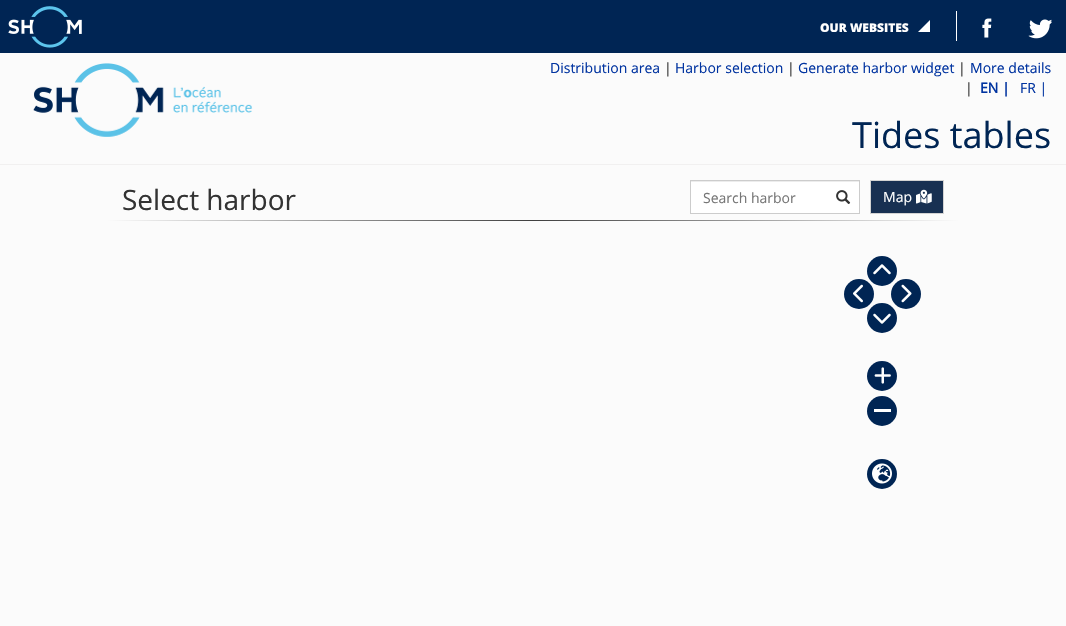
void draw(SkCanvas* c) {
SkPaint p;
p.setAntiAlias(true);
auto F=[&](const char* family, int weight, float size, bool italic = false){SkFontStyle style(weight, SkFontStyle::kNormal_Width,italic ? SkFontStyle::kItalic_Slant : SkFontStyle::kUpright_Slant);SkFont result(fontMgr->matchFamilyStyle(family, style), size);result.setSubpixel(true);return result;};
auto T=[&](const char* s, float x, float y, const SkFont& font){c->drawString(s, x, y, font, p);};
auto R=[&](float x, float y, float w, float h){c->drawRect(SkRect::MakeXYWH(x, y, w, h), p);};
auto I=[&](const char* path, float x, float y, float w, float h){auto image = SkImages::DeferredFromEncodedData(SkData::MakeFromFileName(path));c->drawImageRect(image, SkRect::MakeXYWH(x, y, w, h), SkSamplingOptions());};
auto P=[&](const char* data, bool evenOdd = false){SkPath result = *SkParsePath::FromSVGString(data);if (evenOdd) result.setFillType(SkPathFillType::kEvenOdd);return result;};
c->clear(0xfffbfbfb);
p.setColor(0xff002554);
R(0,0,1066,53);
I("1.png",8,6,74,42);
auto f1 = F("Open Sans",800,12);
p.setColor(0xffffffff);
T("OUR WEBSITES",820,32,f1);
c->save();
c->clipRect(SkRect::MakeXYWH(916,19,15,13));
c->drawPath(P("M930 20v13h-13z"),p);
c->restore();
R(956,11,1,30);
I("2.png",982,18,10,20);
I("3.png",1028,19,24,20);
p.setColor(0xfff1f0f0);
R(0,164,1066,1);
I("4.png",33,63,220,74);
auto f2 = F("Open Sans",400,14);
p.setColor(0xff0033a0);
T("Distribution area",550,73,f2);
p.setColor(0xff333333);
T("|",664,73,f2);
p.setColor(0xff0033a0);
T("Harbor selection",675,73,f2);
p.setColor(0xff333333);
T("|",787,73,f2);
p.setColor(0xff0033a0);
T("Generate harbor widget",798,73,f2);
p.setColor(0xff333333);
T("|",958,73,f2);
p.setColor(0xff0033a0);
T("More details",970,73,f2);
p.setColor(0xff333333);
T("|",965,93,f2);
auto f3 = F("Open Sans",700,14);
p.setColor(0xff0033a0);
T("EN |",980,93,f3);
T("FR |",1020,93,f2);
auto f4 = F("Open Sans",400,36);
p.setColor(0xff002554);
T("Tides tables",852,148,f4);
auto f5 = F("Open Sans",400,28);
p.setColor(0xff333333);
T("Select harbor",122,210,f5);
p.setColor(0xffffffff);
R(691,182,168,31);
p.setColor(0xffececec);
R(691,181,168,1);
p.setStroke(true);
p.setStrokeWidth(1);
p.setColor(0xffcccccc);
c->drawRect(SkRect::MakeXYWH(690.5,180.5,169,33),p);
p.setStroke(false);
p.setColor(0xff767676);
T("Search harbor",703,203,f2);
I("5.png",836,190,15,14);
p.setColor(0xff183052);
c->drawRect(SkRect::MakeXYWH(870.5,180.5,73,33),p);
p.setStroke(true);
p.setColor(0xffd3d3d3);
c->drawRect(SkRect::MakeXYWH(870.5,180.5,73,33),p);
p.setStroke(false);
p.setColor(0xffffffff);
T("Map",883,202,f2);
I("6.png",916,189,16,15);
{
const SkColor colors[] = {0xfffbfbfb,0xff3f3f3f,0xfffbfbfb};
const float stops[] = {0,.5,1};
const SkPoint ends[] = {{107,221}, {959,220}};
p.setShader(SkGradientShader::MakeLinear(ends, colors, stops, 3, SkTileMode::kClamp));
p.setAlpha(255);
}
R(107,220,852,1);
p.setShader(nullptr);
p.setColor(0xff002554);
c->drawCircle(882,271,15,p);
I("7.png",873,264,18,11);
c->drawCircle(882,318,15,p);
c->drawCircle(859,294,15,p);
I("8.png",853,284,10,19);
c->drawCircle(906,294,15,p);
I("9.png",901,284,11,19);
I("10.png",873,313,18,11);
c->drawCircle(882,376,15,p);
I("11.png",874,367,17,17);
c->drawCircle(882,411,15,p);
p.setColor(0xffffffff);
R(874,409,17,3);
p.setColor(0xff002554);
c->drawCircle(882,474,15,p);
I("12.png",872,463,20,21);
}
